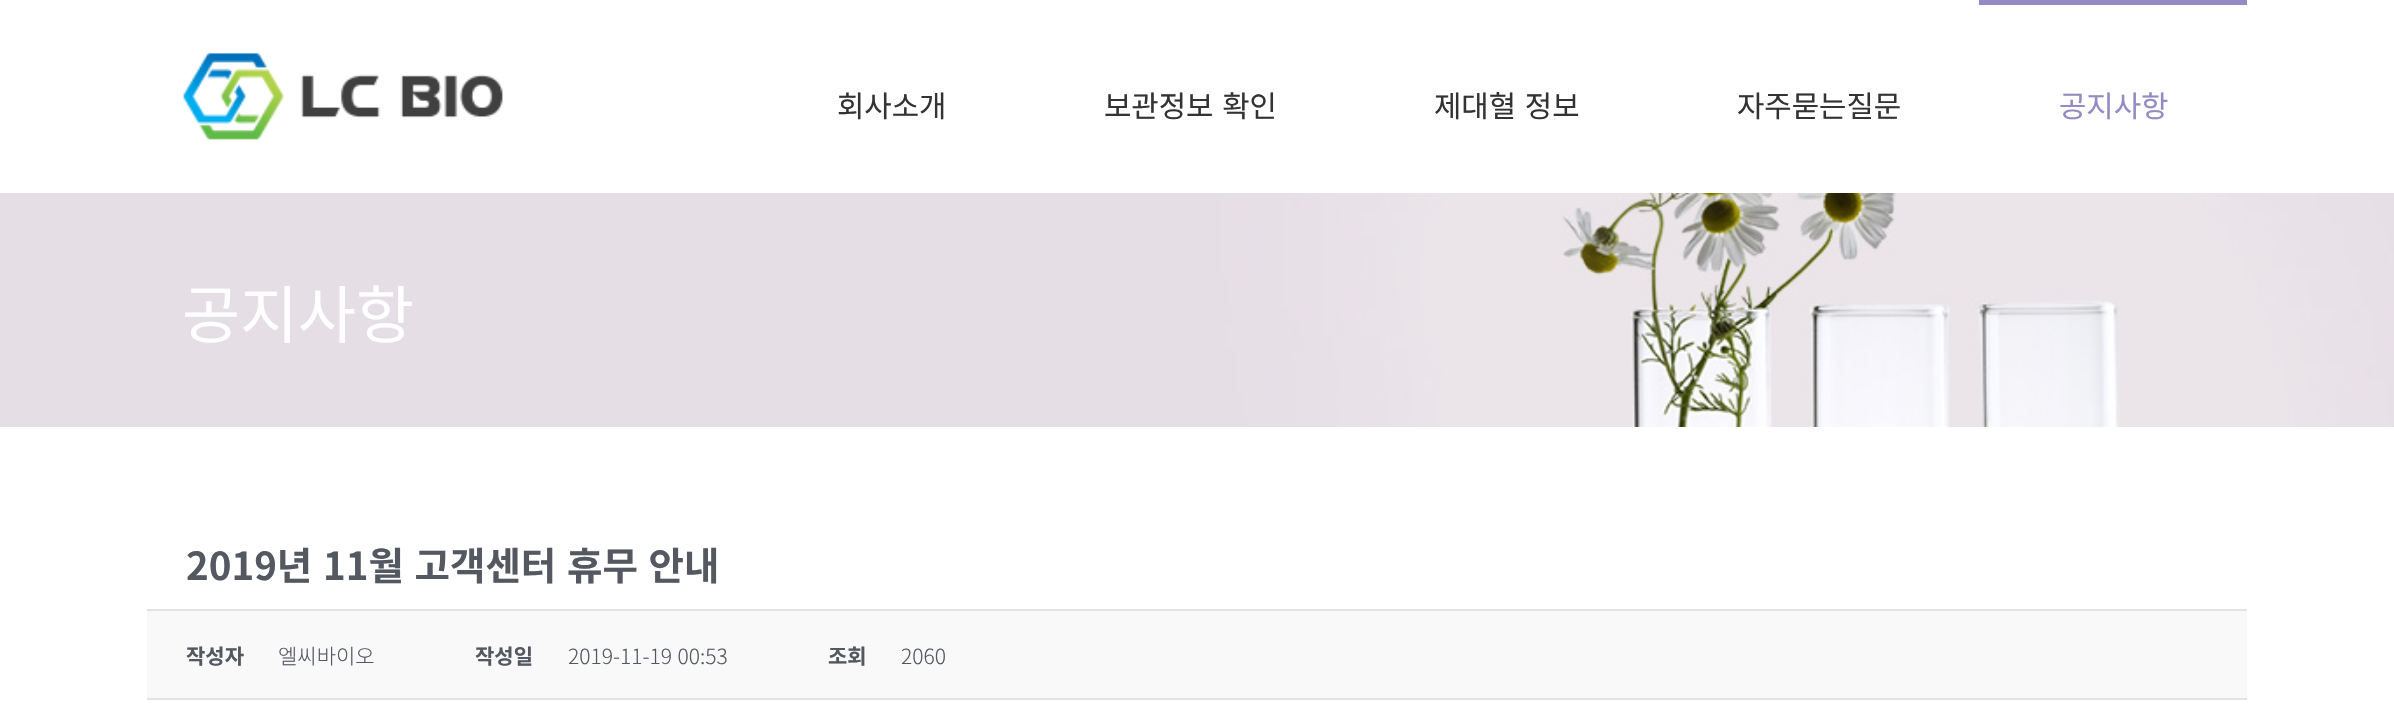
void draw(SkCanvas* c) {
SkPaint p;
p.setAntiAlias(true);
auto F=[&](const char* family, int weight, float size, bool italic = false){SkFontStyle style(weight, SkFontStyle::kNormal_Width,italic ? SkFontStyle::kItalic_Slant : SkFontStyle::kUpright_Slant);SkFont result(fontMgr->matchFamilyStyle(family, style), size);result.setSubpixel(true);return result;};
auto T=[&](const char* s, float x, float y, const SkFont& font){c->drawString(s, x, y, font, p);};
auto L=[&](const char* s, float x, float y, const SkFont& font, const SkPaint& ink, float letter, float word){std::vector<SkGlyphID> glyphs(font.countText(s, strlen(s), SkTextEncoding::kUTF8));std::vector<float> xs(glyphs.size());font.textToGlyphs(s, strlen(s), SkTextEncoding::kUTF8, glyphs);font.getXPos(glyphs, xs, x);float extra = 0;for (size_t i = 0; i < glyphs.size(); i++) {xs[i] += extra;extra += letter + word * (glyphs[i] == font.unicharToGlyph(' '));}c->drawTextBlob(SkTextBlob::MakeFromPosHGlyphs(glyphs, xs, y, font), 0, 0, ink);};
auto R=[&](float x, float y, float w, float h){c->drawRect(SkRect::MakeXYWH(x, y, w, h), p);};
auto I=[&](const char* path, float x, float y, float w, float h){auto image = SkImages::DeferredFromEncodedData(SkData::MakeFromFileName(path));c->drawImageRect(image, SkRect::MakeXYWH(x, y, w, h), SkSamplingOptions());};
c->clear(0xffffffff);
I("1.png",0,193,2394,234);
I("2.png",183,53,320,87);
auto f1 = F("Noto Sans KR",400,29.75);
p.setColor(0xff333333);
T("회사소개",837,117,f1);
L("보관정보 확인",1104,117,f1,p,0,2);
L("제대혈 정보",1434,117,f1,p,0,2);
T("자주묻는질문",1737,117,f1);
p.setColor(0xff958ac2);
R(1979,0,268,5);
T("공지사항",2059,117,f1);
auto f2 = F("Noto Sans KR",400,63);
p.setColor(0xffffffff);
T("공지사항",182,338,f2);
auto f3 = F("Noto Sans KR",700,38.5);
p.setColor(0xff545861);
L("2019년 11월 고객센터 휴무 안내",186,580,f3,p,0,2);
p.setColor(0xfff9f9f9);
R(147,611,2100,87);
p.setColor(0xffe3e3e3);
R(147,609,2100,2);
R(147,698,2100,2);
auto f4 = F("Noto Sans KR",700,21);
p.setColor(0xff545861);
T("작성자",186,664,f4);
auto f5 = F("Noto Sans KR",300,21);
T("엘씨바이오",278,664,f5);
T("작성일",475,664,f4);
L("2019-11-19 00:53",568,664,f5,p,0,1);
T("조회",828,664,f4);
T("2060",901,664,f5);
}
